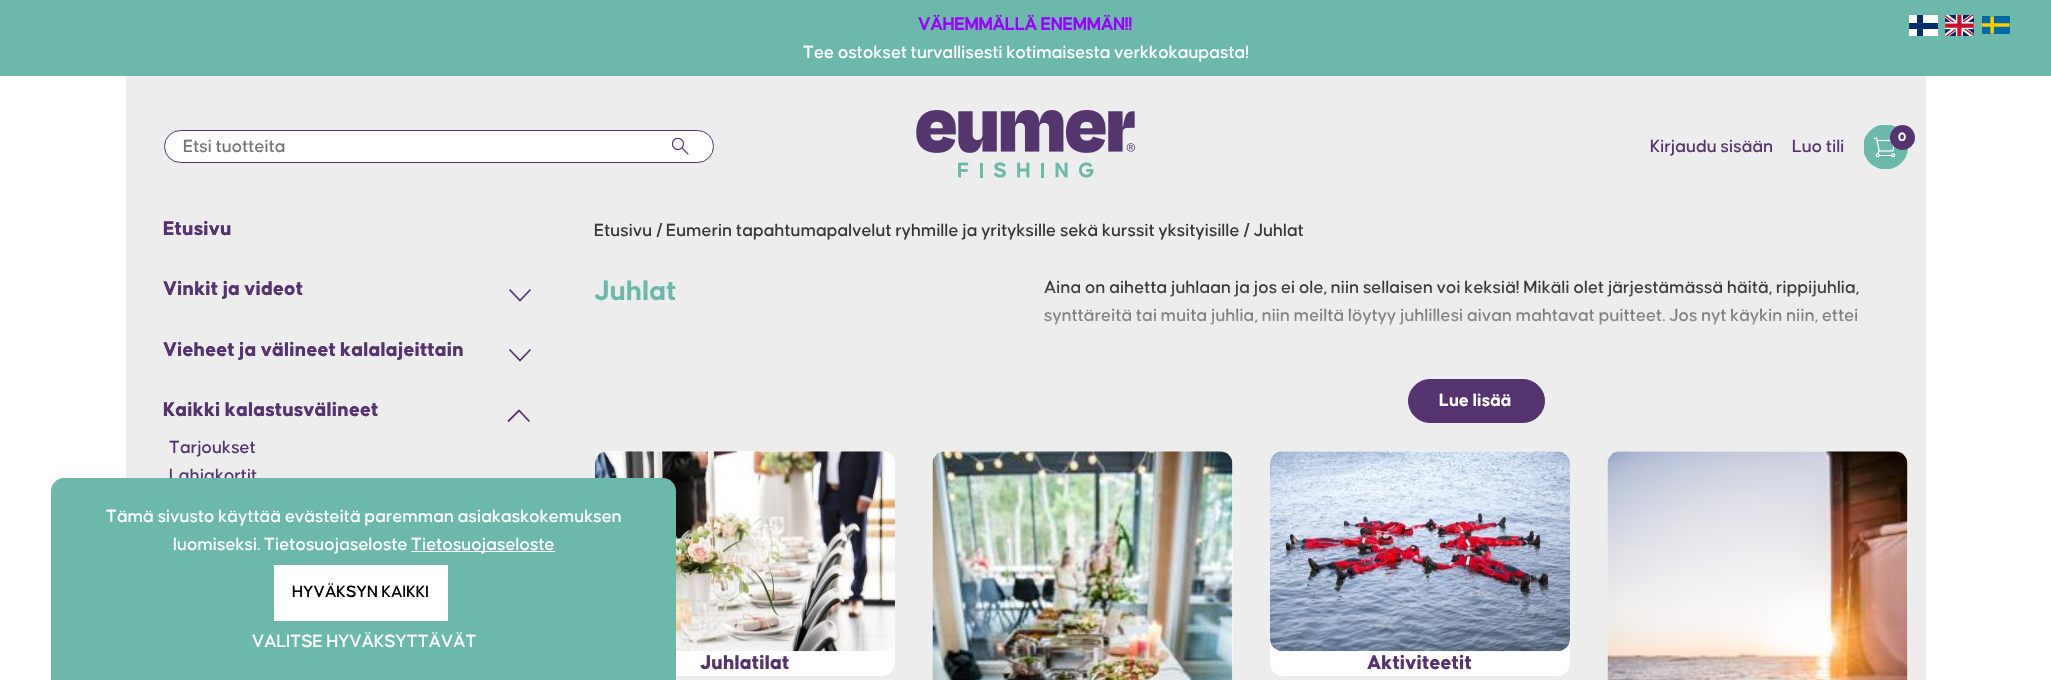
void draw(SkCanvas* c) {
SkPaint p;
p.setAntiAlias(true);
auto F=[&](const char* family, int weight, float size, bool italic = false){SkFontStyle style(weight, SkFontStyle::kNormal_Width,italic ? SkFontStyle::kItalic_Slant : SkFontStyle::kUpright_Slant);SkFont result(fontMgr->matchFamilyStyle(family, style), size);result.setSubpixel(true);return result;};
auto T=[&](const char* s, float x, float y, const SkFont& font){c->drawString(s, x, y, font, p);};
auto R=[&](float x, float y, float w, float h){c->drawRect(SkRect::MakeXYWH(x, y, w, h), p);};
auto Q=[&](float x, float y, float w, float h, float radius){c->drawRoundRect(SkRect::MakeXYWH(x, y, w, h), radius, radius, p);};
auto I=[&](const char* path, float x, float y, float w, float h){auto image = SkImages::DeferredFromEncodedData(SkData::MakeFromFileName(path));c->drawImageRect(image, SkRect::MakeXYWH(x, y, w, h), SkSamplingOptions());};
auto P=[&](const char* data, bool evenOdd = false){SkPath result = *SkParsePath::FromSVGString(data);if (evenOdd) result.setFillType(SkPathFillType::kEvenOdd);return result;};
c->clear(0xffffffff);
p.setColor(0xff6cb8ab);
R(0,0,2051,76);
auto f1 = F("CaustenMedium",700,18.75);
p.setColor(0xff9c00ff);
T("VÄHEMMÄLLÄ ENEMMÄN!!",918,30,f1);
auto f2 = F("CaustenMedium",500,18.75);
p.setColor(0xffffffff);
T("Tee ostokset turvallisesti kotimaisesta verkkokaupasta!",803,58,f2);
R(1909,15,29,21);
p.setColor(0xff002f6c);
R(1909,23,29,6);
R(1917,15,6,21);
I("1.png",1945,15,29,21);
I("2.png",1981,16,29,18);
p.setColor(0xffededed);
R(126,76,1800,604);
p.setColor(0xffffffff);
c->drawRoundRect(SkRect::MakeXYWH(164.5,130.5,549,32),16,16,p);
p.setStroke(true);
p.setStrokeWidth(1);
p.setColor(0xff54336e);
c->drawRoundRect(SkRect::MakeXYWH(164.5,130.5,549,32),16,16,p);
p.setStroke(false);
p.setColor(0xff757575);
T("Etsi tuotteita",183,152,f2);
I("3.png",672,138,17,17);
I("4.png",916,110,219,43);
I("5.png",958,162,136,16);
I("6.png",1864,125,44,44);
p.setColor(0xff54336e);
c->drawCircle(1902.5,137.5,12.5,p);
auto f3 = F("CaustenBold",700,13);
p.setColor(0xffffffff);
T("0",1898,141,f3);
p.setColor(0xff54336e);
T("Kirjaudu sisään",1650,152,f2);
T("Luo tili",1792,152,f2);
auto f4 = F("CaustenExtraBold",800,21.25);
T("Etusivu",163,235,f4);
T("Vinkit ja videot",163,295,f4);
p.setStroke(true);
p.setStrokeWidth(1.8);
p.setColor(0xff54356e);
c->drawPath(P("M509.5 289.5l10.5 11l10.5-11"),p);
p.setStroke(false);
p.setColor(0xff54336e);
T("Vieheet ja välineet kalalajeittain",163,356,f4);
p.setStroke(true);
p.setColor(0xff54356e);
c->drawPath(P("M509.5 349.5l10.5 11l10.5-11"),p);
p.setStroke(false);
p.setColor(0xff54336e);
T("Kaikki kalastusvälineet",163,416,f4);
p.setStroke(true);
p.setColor(0xff54356e);
c->drawPath(P("M529.5 421.5l-10.5-11l-11 11"),p);
p.setStroke(false);
p.setColor(0xff54336e);
T("Tarjoukset",169,453,f2);
T("Lahjakortit",169,481,f2);
p.setColor(0xff373737);
T("Etusivu / Eumerin tapahtumapalvelut ryhmille ja yrityksille sekä kurssit yksityisille / Juhlat",594,236,f2);
auto f5 = F("CaustenBold",700,30);
p.setColor(0xff6cb8ab);
T("Juhlat",594,300,f5);
p.setColor(0xff373737);
T("Aina on aihetta juhlaan ja jos ei ole, niin sellaisen voi keksiä! Mikäli olet järjestämässä häitä, rippijuhlia,",1044,293,f2);
T("synttäreitä tai muita juhlia, niin meiltä löytyy juhlillesi aivan mahtavat puitteet. Jos nyt käykin niin, ettei",1044,321,f2);
{
const SkColor colors[] = {0x00ededed,0xffededed};
const float stops[] = {0,1};
const SkPoint ends[] = {{1476,285}, {1476,360}};
p.setShader(SkGradientShader::MakeLinear(ends, colors, stops, 2, SkTileMode::kClamp));
p.setAlpha(255);
}
R(1045,287,814,38);
p.setShader(nullptr);
p.setColor(0xff54336e);
c->drawRoundRect(SkRect::MakeXYWH(1408.5,379.5,136,43),21.5,21.5,p);
p.setStroke(true);
p.setStrokeWidth(1);
c->drawRoundRect(SkRect::MakeXYWH(1408.5,379.5,136,43),21.5,21.5,p);
auto f6 = F("CaustenBold",700,18.75);
p.setStroke(false);
p.setColor(0xffffffff);
T("Lue lisää",1439,406,f6);
Q(595,451,300,225,13);
I("7.png",595,451,300,201);
p.setColor(0xff54336e);
T("Juhlatilat",700,669,f4);
p.setColor(0xffffffff);
Q(933,451,300,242,13);
I("8.png",932,451,301,229);
Q(1270,451,300,225,13);
I("9.png",1270,451,300,201);
p.setColor(0xff54336e);
T("Aktiviteetit",1367,669,f4);
p.setColor(0xffffffff);
Q(1608,451,300,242,13);
I("10.png",1607,451,301,229);
p.setColor(0xff6cb8ab);
c->drawPath(P("M64 478h599c7 0 13 6 13 13v189h-625v-189c0-7 6-13 13-13z"),p);
p.setColor(0xffffffff);
T("Tämä sivusto käyttää evästeitä paremman asiakaskokemuksen",106,522,f2);
T("luomiseksi. Tietosuojaseloste",173,550,f2);
R(411,551,144,1);
T("Tietosuojaseloste",411,550,f2);
R(274,565,174,56);
auto f7 = F("CaustenMedium",500,17.5);
p.setColor(0xff000000);
T("HYVÄKSYN KAIKKI",292,597,f7);
p.setColor(0xffffffff);
T("VALITSE HYVÄKSYTTÄVÄT",252,647,f2);
}
